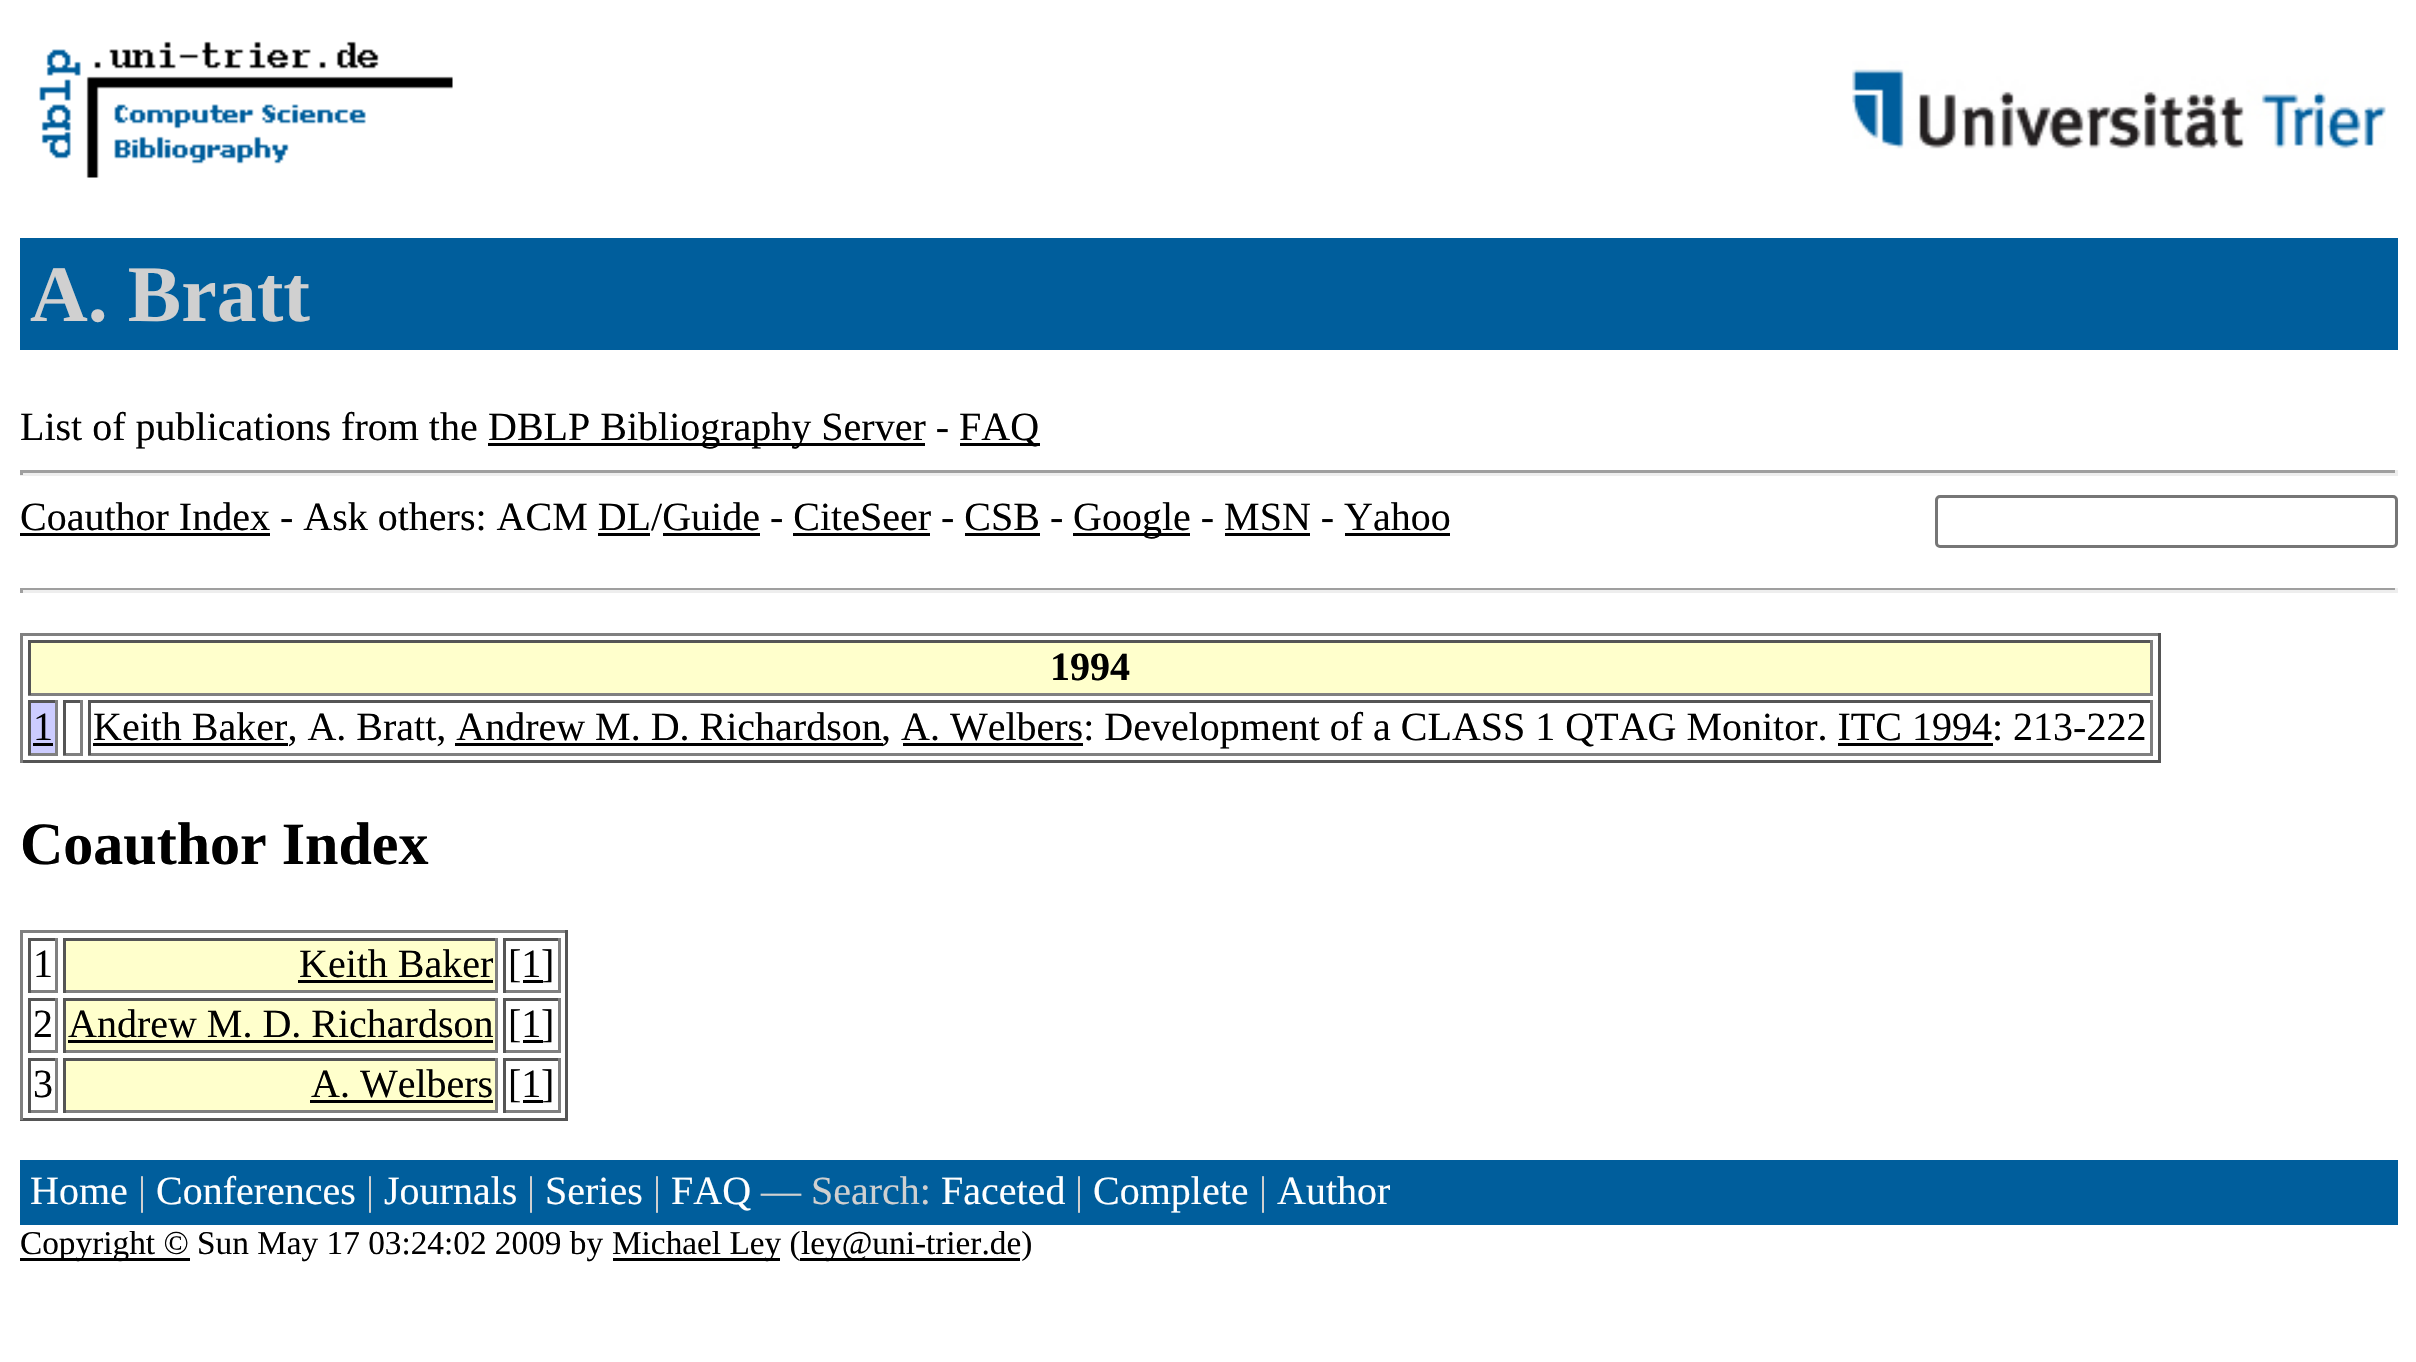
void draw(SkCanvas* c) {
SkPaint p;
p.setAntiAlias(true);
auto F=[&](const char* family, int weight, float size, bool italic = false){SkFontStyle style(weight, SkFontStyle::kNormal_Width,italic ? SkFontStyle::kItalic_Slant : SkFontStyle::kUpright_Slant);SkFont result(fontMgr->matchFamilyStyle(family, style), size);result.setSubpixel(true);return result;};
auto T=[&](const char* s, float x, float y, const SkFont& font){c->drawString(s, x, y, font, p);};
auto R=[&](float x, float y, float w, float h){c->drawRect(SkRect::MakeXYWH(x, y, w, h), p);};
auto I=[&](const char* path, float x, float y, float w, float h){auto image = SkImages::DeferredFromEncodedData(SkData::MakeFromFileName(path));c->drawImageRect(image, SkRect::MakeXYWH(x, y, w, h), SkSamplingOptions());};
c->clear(0xffffffff);
I("1.png",39,41,414,137);
I("2.png",1852,61,534,88);
p.setColor(0xff005e9c);
R(20,238,2378,112);
auto f1 = F("Liberation Serif",700,80);
p.setColor(0xffd0d0d0);
T("A. Bratt",30,321,f1);
auto f2 = F("Liberation Serif",400,40);
p.setColor(0xff000000);
T("List of publications from the",20,440,f2);
R(488,443,437,3);
T("DBLP Bibliography Server -",488,440,f2);
R(960,443,80,3);
T("FAQ",959,440,f2);
p.setColor(0xff9f9f9f);
R(20,470,2378,3);
p.setColor(0xffeeeeee);
R(2395,470,3,5);
R(20,473,2378,3);
p.setColor(0xff9f9f9f);
R(20,470,3,5);
p.setColor(0xff000000);
T("Coauthor Index - Ask others: ACM DL/Guide - CiteSeer - CSB -",20,530,f2);
R(20,533,250,3);
R(1073,533,117,3);
T("Google - MSN - Yahoo",1073,530,f2);
p.setStroke(true);
p.setStrokeWidth(3);
p.setColor(0xff767676);
c->drawRoundRect(SkRect::MakeXYWH(1936.5,496.5,460,50),3.5,3.5,p);
p.setStroke(false);
p.setColor(0xff000000);
R(598,533,52,3);
R(663,533,97,3);
R(793,533,137,3);
R(965,533,75,3);
R(1225,533,85,3);
R(1345,533,105,3);
p.setColor(0xff9f9f9f);
R(20,588,2378,2);
p.setColor(0xffeeeeee);
R(2395,588,3,5);
R(20,590,2378,3);
p.setColor(0xff9f9f9f);
R(20,588,3,5);
p.setColor(0xff808080);
R(20,633,2140,3);
p.setColor(0xff555555);
R(2158,633,3,130);
R(20,760,2140,3);
p.setColor(0xff808080);
R(20,633,3,130);
p.setColor(0xffffffcc);
R(31,643,2119,50);
p.setColor(0xff555555);
R(28,640,2125,3);
p.setColor(0xff808080);
R(2150,640,3,55);
R(28,693,2125,3);
p.setColor(0xff555555);
R(28,640,3,55);
auto f3 = F("Liberation Serif",700,40);
p.setColor(0xff000000);
T("1994",1050,680,f3);
p.setColor(0xffccccff);
R(31,703,24,50);
p.setColor(0xff555555);
R(28,700,30,3);
p.setColor(0xff808080);
R(55,700,3,55);
R(28,753,30,3);
p.setColor(0xff555555);
R(28,700,3,55);
p.setColor(0xff000000);
T("1",33,740,f2);
R(33,743,20,3);
p.setColor(0xff555555);
R(63,700,20,3);
p.setColor(0xff808080);
R(80,700,3,55);
R(63,753,20,3);
p.setColor(0xff555555);
R(63,700,3,55);
R(88,700,2065,3);
p.setColor(0xff808080);
R(2150,700,3,55);
R(88,753,2065,3);
p.setColor(0xff555555);
R(88,700,3,55);
p.setColor(0xff000000);
R(93,743,195,3);
T("Keith Baker, A. Bratt, Andrew M. D. Richardson",93,740,f2);
R(455,743,428,3);
T(", A. Welbers: Development of a CLASS 1 QTAG Monitor. ITC 1994: 213-222",881,740,f2);
R(903,743,180,3);
R(1838,743,155,3);
auto f4 = F("Liberation Serif",700,60);
T("Coauthor Index",20,864,f4);
p.setColor(0xff808080);
R(20,930,548,3);
p.setColor(0xff555555);
R(565,930,3,190);
R(20,1118,548,3);
p.setColor(0xff808080);
R(20,930,3,190);
p.setColor(0xff555555);
R(28,938,30,3);
p.setColor(0xff808080);
R(55,938,3,55);
R(28,990,30,3);
p.setColor(0xff555555);
R(28,938,3,55);
p.setColor(0xff000000);
T("1",33,977,f2);
p.setColor(0xffffffcc);
R(66,941,429,49);
p.setColor(0xff555555);
R(63,938,435,3);
p.setColor(0xff808080);
R(495,938,3,55);
R(63,990,435,3);
p.setColor(0xff555555);
R(63,938,3,55);
p.setColor(0xff000000);
T("Keith Baker",299,977,f2);
R(298,980,195,3);
p.setColor(0xff555555);
R(503,938,57,3);
p.setColor(0xff808080);
R(558,938,3,55);
R(503,990,57,3);
p.setColor(0xff555555);
R(503,938,3,55);
p.setColor(0xff000000);
T("[1",508,977,f2);
R(523,980,20,3);
T("]",541,977,f2);
p.setColor(0xff555555);
R(28,998,30,3);
p.setColor(0xff808080);
R(55,998,3,55);
R(28,1050,30,3);
p.setColor(0xff555555);
R(28,998,3,55);
p.setColor(0xff000000);
T("2",33,1037,f2);
p.setColor(0xffffffcc);
R(66,1001,429,49);
p.setColor(0xff555555);
R(63,998,435,3);
p.setColor(0xff808080);
R(495,998,3,55);
R(63,1050,435,3);
p.setColor(0xff555555);
R(63,998,3,55);
p.setColor(0xff000000);
T("Andrew M. D. Richardson",68,1037,f2);
R(68,1040,425,3);
p.setColor(0xff555555);
R(503,998,57,3);
p.setColor(0xff808080);
R(558,998,3,55);
R(503,1050,57,3);
p.setColor(0xff555555);
R(503,998,3,55);
p.setColor(0xff000000);
T("[1",508,1037,f2);
R(523,1040,20,3);
T("]",541,1037,f2);
p.setColor(0xff555555);
R(28,1058,30,3);
p.setColor(0xff808080);
R(55,1058,3,55);
R(28,1110,30,3);
p.setColor(0xff555555);
R(28,1058,3,55);
p.setColor(0xff000000);
T("3",33,1097,f2);
p.setColor(0xffffffcc);
R(66,1061,429,49);
p.setColor(0xff555555);
R(63,1058,435,3);
p.setColor(0xff808080);
R(495,1058,3,55);
R(63,1110,435,3);
p.setColor(0xff555555);
R(63,1058,3,55);
p.setColor(0xff000000);
T("A. Welbers",311,1097,f2);
R(310,1100,183,3);
p.setColor(0xff555555);
R(503,1058,57,3);
p.setColor(0xff808080);
R(558,1058,3,55);
R(503,1110,57,3);
p.setColor(0xff555555);
R(503,1058,3,55);
p.setColor(0xff000000);
T("[1",508,1097,f2);
R(523,1100,20,3);
T("]",541,1097,f2);
p.setColor(0xff005e9c);
R(20,1160,2378,65);
p.setColor(0xffffffff);
T("Home",30,1204,f2);
p.setColor(0xffd0d0d0);
T("|",138,1204,f2);
p.setColor(0xffffffff);
T("Conferences",156,1204,f2);
p.setColor(0xffd0d0d0);
T("|",366,1204,f2);
p.setColor(0xffffffff);
T("Journals",384,1204,f2);
p.setColor(0xffd0d0d0);
T("|",527,1204,f2);
p.setColor(0xffffffff);
T("Series",545,1204,f2);
p.setColor(0xffd0d0d0);
T("|",653,1204,f2);
p.setColor(0xffffffff);
T("FAQ",671,1204,f2);
p.setColor(0xffd0d0d0);
T("— Search:",761,1204,f2);
p.setColor(0xffffffff);
T("Faceted",941,1204,f2);
p.setColor(0xffd0d0d0);
T("|",1075,1204,f2);
p.setColor(0xffffffff);
T("Complete",1093,1204,f2);
p.setColor(0xffd0d0d0);
T("|",1259,1204,f2);
p.setColor(0xffffffff);
T("Author",1277,1204,f2);
p.setColor(0xff000000);
R(20,1258,170,3);
auto f5 = F("Liberation Serif",400,33.3);
T("Copyright © Sun May 17 03:24:02 2009 by",20,1254,f5);
R(613,1258,167,3);
T("Michael Ley (",612,1254,f5);
R(800,1258,220,3);
T("ley@uni-trier.de)",801,1254,f5);
}
